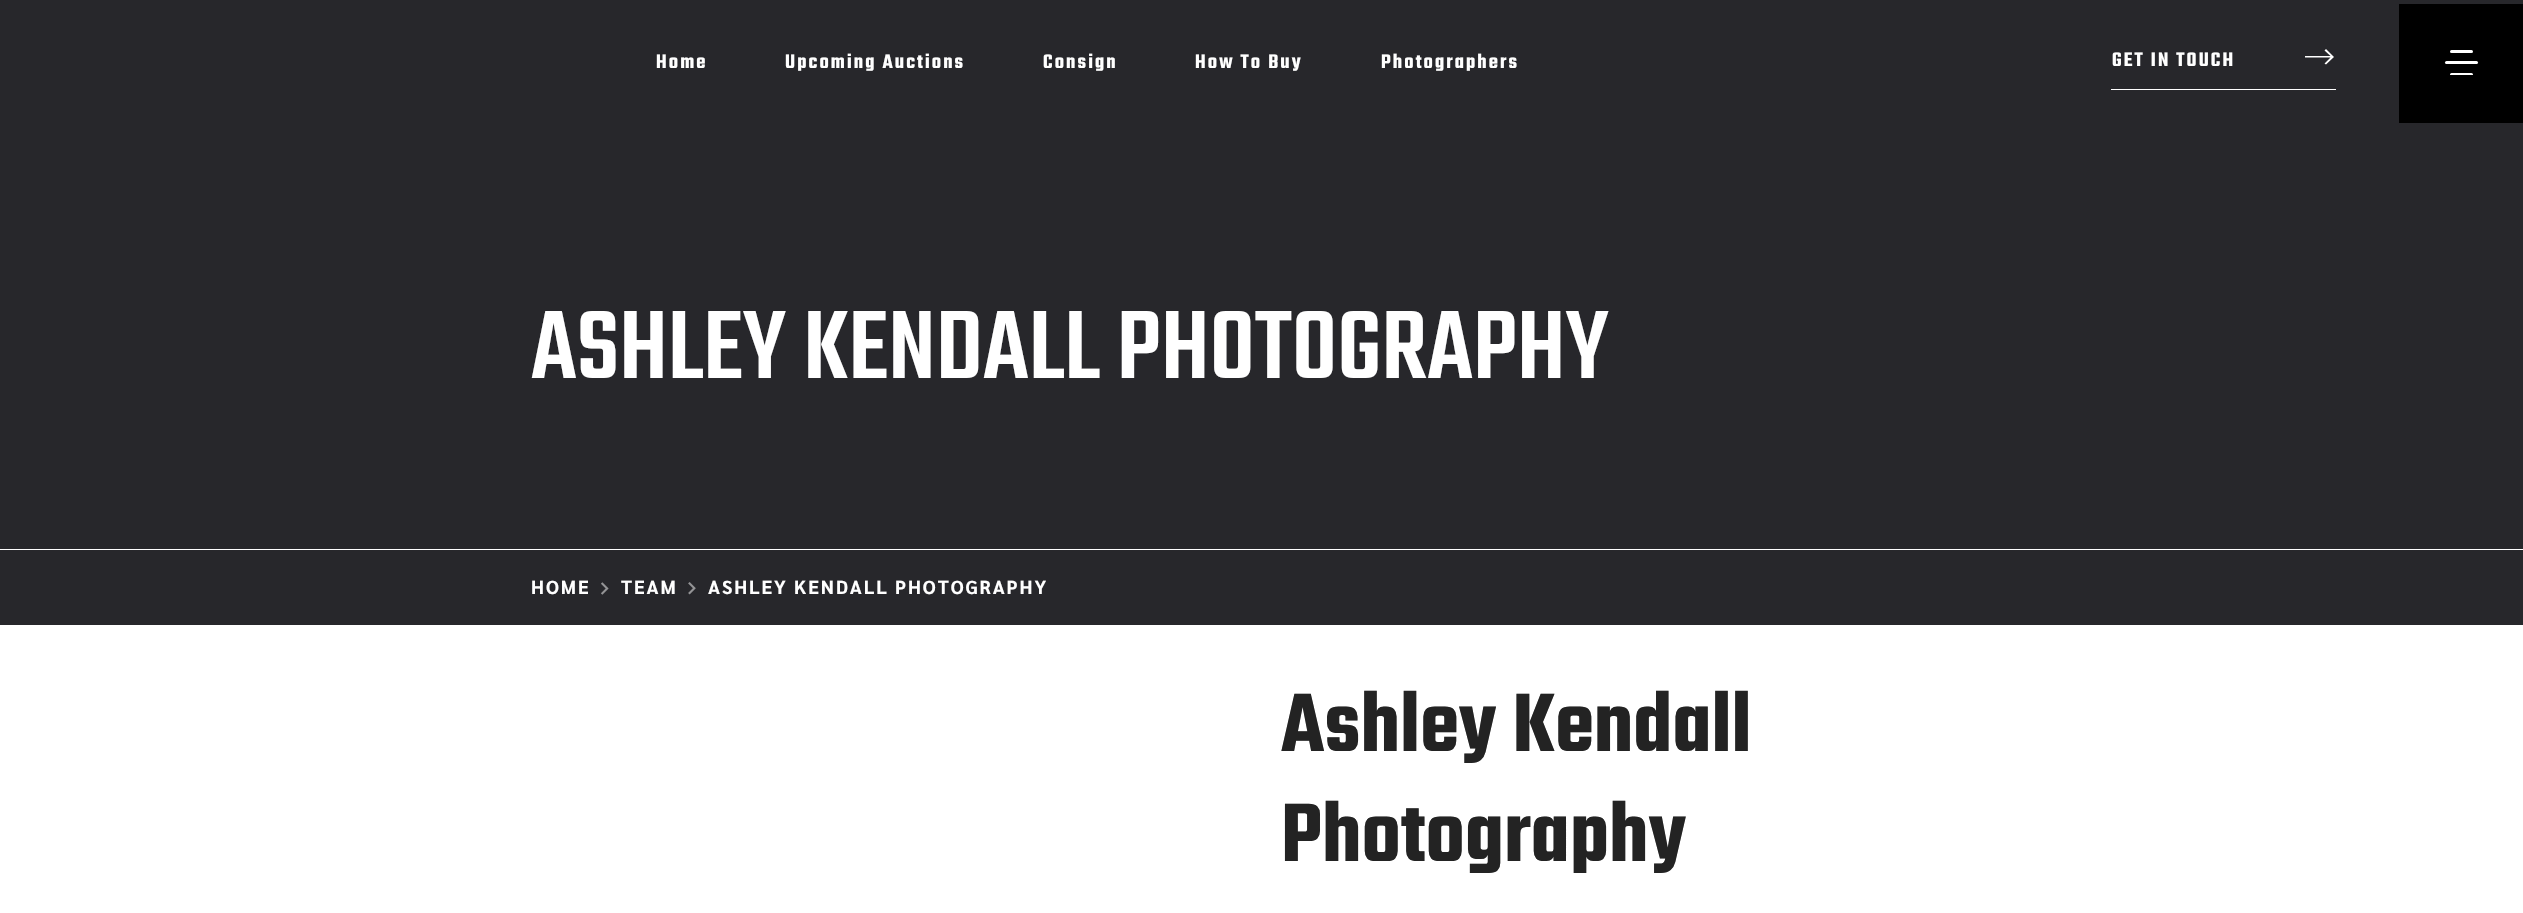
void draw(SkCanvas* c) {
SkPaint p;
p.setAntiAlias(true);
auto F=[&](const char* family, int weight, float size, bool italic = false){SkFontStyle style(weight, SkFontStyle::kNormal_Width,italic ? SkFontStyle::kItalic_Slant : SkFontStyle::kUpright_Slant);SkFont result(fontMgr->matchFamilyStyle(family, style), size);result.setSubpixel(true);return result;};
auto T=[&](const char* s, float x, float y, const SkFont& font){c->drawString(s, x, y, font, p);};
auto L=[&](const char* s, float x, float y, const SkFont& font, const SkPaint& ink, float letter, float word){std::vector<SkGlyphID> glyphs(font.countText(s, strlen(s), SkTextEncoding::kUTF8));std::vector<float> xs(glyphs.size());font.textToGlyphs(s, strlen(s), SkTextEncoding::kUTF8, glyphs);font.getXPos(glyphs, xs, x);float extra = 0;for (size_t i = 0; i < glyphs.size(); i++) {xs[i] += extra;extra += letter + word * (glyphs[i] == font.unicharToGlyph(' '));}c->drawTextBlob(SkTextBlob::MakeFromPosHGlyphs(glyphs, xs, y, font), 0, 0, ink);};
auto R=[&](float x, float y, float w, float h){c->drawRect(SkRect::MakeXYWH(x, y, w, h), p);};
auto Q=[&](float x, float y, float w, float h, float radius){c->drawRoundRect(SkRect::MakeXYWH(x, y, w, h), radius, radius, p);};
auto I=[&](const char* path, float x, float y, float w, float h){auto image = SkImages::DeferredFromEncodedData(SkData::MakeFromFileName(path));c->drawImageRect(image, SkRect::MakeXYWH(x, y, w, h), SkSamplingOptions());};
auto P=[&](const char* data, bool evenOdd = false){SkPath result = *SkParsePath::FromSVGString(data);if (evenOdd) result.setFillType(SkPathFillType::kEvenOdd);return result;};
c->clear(0xffffffff);
p.setColor(0xff27272b);
R(0,0,2523,625);
auto f1 = F("Teko",600,21.25);
p.setColor(0xffffffff);
L("Home",656,68,f1,p,2.1,0);
L("Upcoming Auctions",785,68,f1,p,2.1,0);
L("Consign",1043,68,f1,p,2.1,0);
L("How To Buy",1195,68,f1,p,2.1,0);
L("Photographers",1381,68,f1,p,2.1,0);
R(2111,89,225,1);
L("GET IN TOUCH",2112,66,f1,p,2.1,0);
c->drawPath(P("M2326 49l-1.5 1.5l6 5.5h-25.5v1.5h25.5l-6 6l1.5 1l8-7.5z"),p);
p.setColor(0xff000000);
R(2399,4,124,119);
p.setColor(0xffffffff);
Q(2450,50,23,3,1.5);
Q(2445,61,33,3,1.5);
c->save();
c->clipRect(SkRect::MakeXYWH(2445,50,33,25));
Q(2450,73,23,3,1.5);
c->restore();
auto f2 = F("Teko",500,106.25);
T("ASHLEY KENDALL PHOTOGRAPHY",531,378,f2);
R(0,549,2523,1);
auto f3 = F("Sarabun",700,18.75);
L("HOME",531,594,f3,p,1.9,0);
I("1.png",601,582,8,13);
L("TEAM",621,594,f3,p,1.9,0);
I("2.png",688,582,8,13);
L("ASHLEY KENDALL PHOTOGRAPHY",708,594,f3,p,1.9,0);
auto f4 = F("Teko",600,90);
p.setColor(0xff232323);
T("Ashley Kendall",1281,751,f4);
T("Photography",1281,861,f4);
}
